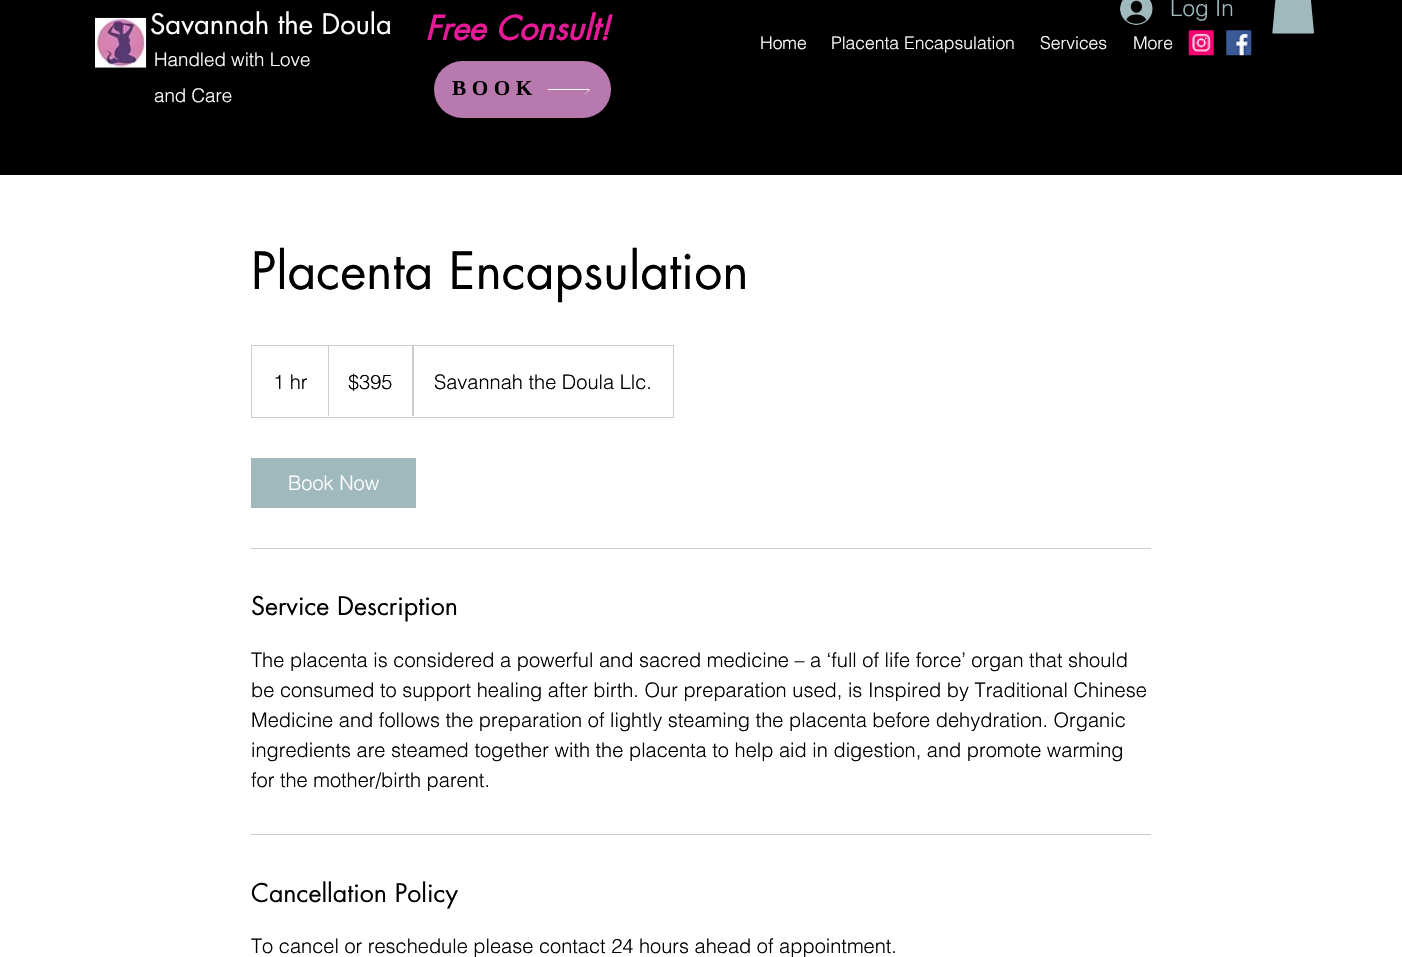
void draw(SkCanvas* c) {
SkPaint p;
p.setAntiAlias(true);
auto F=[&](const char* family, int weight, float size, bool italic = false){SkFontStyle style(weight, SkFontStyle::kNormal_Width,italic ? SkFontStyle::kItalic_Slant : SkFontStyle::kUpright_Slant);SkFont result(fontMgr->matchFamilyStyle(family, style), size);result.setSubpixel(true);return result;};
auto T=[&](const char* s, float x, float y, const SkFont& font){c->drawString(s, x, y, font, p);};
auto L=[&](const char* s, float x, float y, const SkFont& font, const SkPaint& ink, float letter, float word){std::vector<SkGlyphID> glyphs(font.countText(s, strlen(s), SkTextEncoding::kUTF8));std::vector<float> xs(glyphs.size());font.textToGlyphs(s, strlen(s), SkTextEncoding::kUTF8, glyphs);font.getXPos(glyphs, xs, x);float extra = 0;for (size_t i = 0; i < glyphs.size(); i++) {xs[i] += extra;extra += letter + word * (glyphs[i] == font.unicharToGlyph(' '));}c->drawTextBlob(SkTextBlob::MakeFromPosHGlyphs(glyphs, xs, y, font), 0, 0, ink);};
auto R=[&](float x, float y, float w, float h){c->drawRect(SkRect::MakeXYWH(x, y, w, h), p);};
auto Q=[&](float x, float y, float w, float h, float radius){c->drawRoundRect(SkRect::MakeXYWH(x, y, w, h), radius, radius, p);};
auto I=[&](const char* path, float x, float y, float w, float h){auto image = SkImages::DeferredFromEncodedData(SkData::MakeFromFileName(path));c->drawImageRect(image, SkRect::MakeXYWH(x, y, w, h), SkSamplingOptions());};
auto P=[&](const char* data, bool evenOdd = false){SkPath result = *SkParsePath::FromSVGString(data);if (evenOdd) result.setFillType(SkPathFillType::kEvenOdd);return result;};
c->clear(0xffffffff);
p.setColor(0xff000000);
R(0,0,1402,175);
I("1.png",95,17,52,51);
auto f1 = F("futura",400,27.5);
p.setColor(0xffffffff);
T("Savannah the Doula",150,34,f1);
auto f2 = F("helvetica",300,18.75);
T("Handled with Love",154,66,f2);
T("and Care",154,102,f2);
auto f3 = F("futura",700,32.5,true);
p.setColor(0xffe61997);
T("Free Consult!",425,40,f3);
p.setColor(0xffb879ae);
Q(434,61,177,57,28.5);
auto f4 = F("Liberation Serif",700,21.25);
p.setColor(0xff000000);
L("BOOK",452,95,f4,p,5.5,0);
p.setColor(0xffffffff);
c->drawPath(P("M583 83l6 6h-41v1h41l-6 6l7-6z"),p);
auto f5 = F("helvetica",300,17.5);
T("Home",760,49,f5);
T("Placenta Encapsulation",831,49,f5);
T("Services",1040,49,f5);
T("More",1133,49,f5);
I("2.png",1188,30,26,26);
I("3.png",1226,30,26,26);
I("4.png",1120,0,33,25);
auto f6 = F("helvetica",300,22.5);
p.setColor(0xff9fb9bd);
T("Log In",1170,16,f6);
I("5.png",1272,0,42,34);
auto f7 = F("futura",400,50);
p.setColor(0xff000000);
T("Placenta Encapsulation",251,289,f7);
p.setStroke(true);
p.setStrokeWidth(1);
p.setColor(0xffcccccc);
c->drawRect(SkRect::MakeXYWH(251.5,345.5,422,72),p);
auto f8 = F("helvetica",300,20);
p.setStroke(false);
p.setColor(0xff000000);
T("1 hr",273,389,f8);
p.setColor(0xffcccccc);
c->drawPath(P("M328 416v-71l1 1v70z"),p);
p.setColor(0xff000000);
T("$395",348,389,f8);
p.setColor(0xffcccccc);
c->drawPath(P("M412 416v-71l2 1v70z"),p);
p.setColor(0xff000000);
T("Savannah the Doula Llc.",434,389,f8);
p.setColor(0xff9fb9bd);
R(251,458,165,50);
p.setColor(0xffffffff);
T("Book Now",288,490,f8);
p.setColor(0xffcccccc);
R(251,548,900,1);
auto f9 = F("futura",400,25);
p.setColor(0xff000000);
T("Service Description",251,615,f9);
T("The placenta is considered a powerful and sacred medicine – a ‘full of life force’ organ that should",251,667,f8);
T("be consumed to support healing after birth. Our preparation used, is Inspired by Traditional Chinese",251,697,f8);
T("Medicine and follows the preparation of lightly steaming the placenta before dehydration. Organic",251,727,f8);
T("ingredients are steamed together with the placenta to help aid in digestion, and promote warming",251,757,f8);
T("for the mother/birth parent.",251,787,f8);
p.setColor(0xffcccccc);
R(251,834,900,1);
p.setColor(0xff000000);
T("Cancellation Policy",251,902,f9);
T("To cancel or reschedule please contact 24 hours ahead of appointment.",251,953,f8);
}
